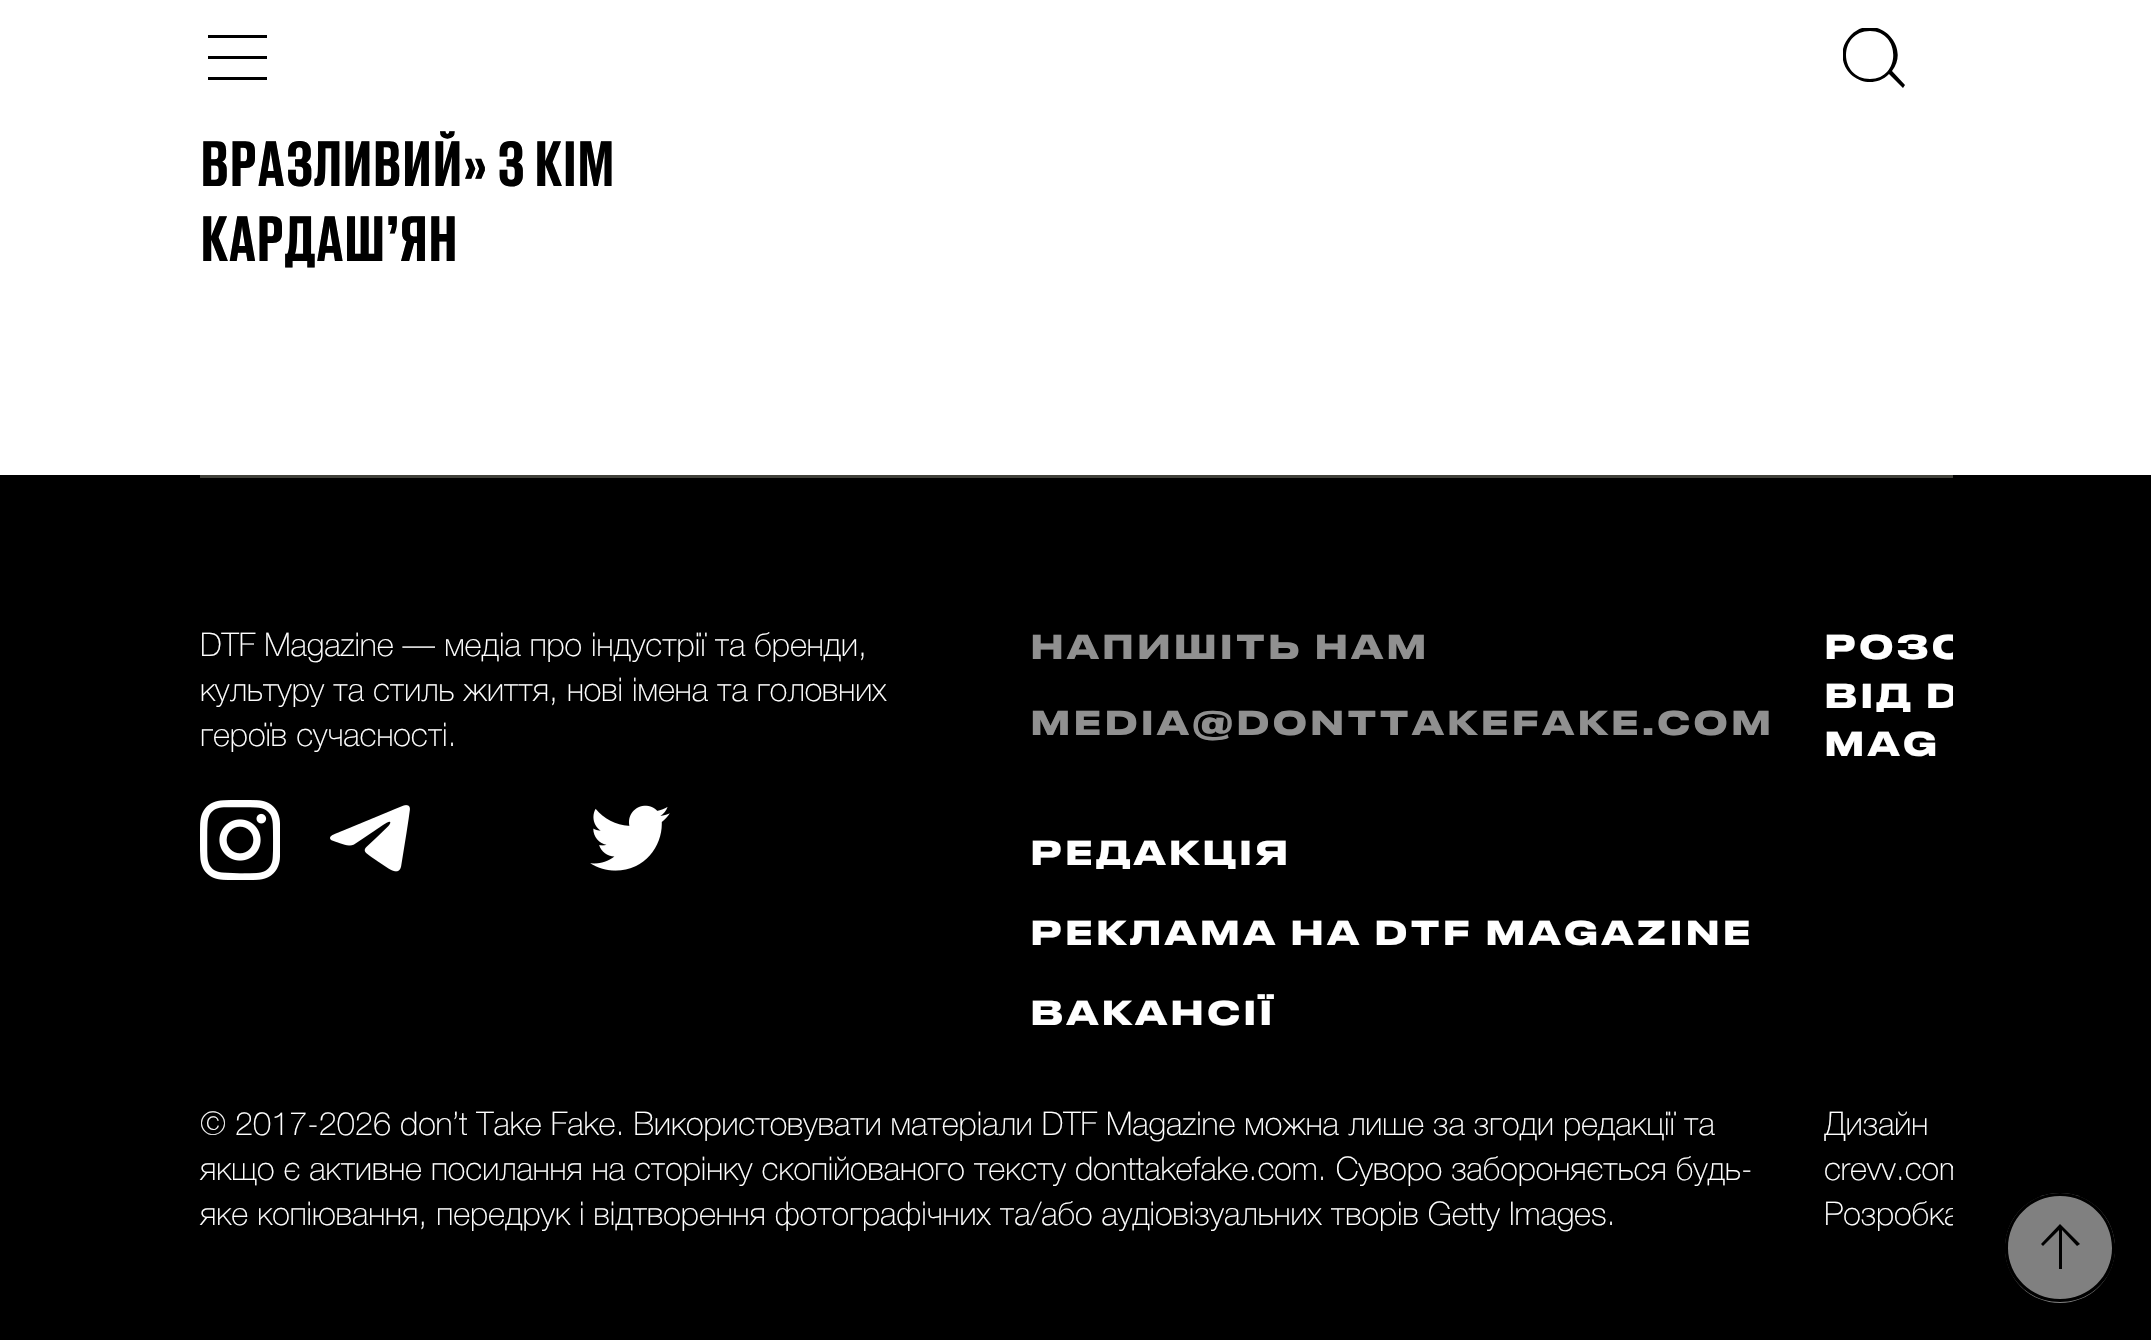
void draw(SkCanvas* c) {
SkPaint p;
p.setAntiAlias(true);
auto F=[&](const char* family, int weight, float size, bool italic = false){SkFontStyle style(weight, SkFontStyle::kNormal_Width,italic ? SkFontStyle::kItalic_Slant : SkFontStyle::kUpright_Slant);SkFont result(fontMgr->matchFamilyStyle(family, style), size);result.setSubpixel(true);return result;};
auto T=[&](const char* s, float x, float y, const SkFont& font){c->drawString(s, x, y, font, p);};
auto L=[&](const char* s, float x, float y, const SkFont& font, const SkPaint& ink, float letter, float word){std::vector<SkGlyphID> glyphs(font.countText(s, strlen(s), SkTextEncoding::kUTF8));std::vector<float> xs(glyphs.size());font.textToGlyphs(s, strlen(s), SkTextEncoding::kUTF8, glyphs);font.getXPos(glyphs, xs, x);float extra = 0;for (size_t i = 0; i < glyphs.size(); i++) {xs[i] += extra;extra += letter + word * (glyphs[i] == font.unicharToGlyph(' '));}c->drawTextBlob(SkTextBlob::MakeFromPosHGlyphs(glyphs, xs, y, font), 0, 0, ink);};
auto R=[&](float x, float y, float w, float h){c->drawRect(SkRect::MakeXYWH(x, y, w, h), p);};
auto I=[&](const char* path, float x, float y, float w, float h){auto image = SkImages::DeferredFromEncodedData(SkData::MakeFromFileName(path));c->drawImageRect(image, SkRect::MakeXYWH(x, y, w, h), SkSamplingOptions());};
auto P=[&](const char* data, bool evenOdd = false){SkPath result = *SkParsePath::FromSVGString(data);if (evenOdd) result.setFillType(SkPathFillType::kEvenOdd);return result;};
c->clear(0xffffffff);
p.setColor(0xff000000);
R(208,56,59,3);
R(208,35,59,3);
R(208,77,59,3);
c->save();
c->clipRect(SkRect::MakeXYWH(1843,28,65,60));
c->drawPath(P("M1905 85l-13-14c20-26-17-60-41-36c-4 4-7 9-8 14c-5 27 27 44 46 25l14 14zm-35-6c-32 0-32-48 0-48c31 0 31 48 0 48z"),p);
c->restore();
auto f1 = F("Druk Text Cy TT",500,60);
T("ВРАЗЛИВИЙ» З КІМ",200,186,f1);
T("КАРДАШ’ЯН",200,261,f1);
R(0,475,2151,865);
p.setColor(0xff41413a);
R(200,475,1753,3);
auto f2 = F("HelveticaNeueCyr",100,32.5);
p.setColor(0xffffffff);
T("DTF Magazine — медіа про індустрії та бренди,",200,656,f2);
T("культуру та стиль життя, нові імена та головних",200,701,f2);
T("героїв сучасності.",200,746,f2);
I("1.png",200,800,80,80);
I("2.png",330,805,80,67);
I("3.png",590,805,80,66);
auto f3 = F("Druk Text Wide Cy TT",700,32.5);
p.setColor(0xff909090);
L("НАПИШІТЬ НАМ",1030,659,f3,p,2.5,0);
L("MEDIA@DONTTAKEFAKE.COM",1030,735,f3,p,2.5,0);
p.setColor(0xffffffff);
L("РЕДАКЦІЯ",1030,865,f3,p,2.5,0);
L("РЕКЛАМА НА DTF MAGAZINE",1030,945,f3,p,2.5,0);
L("ВАКАНСІЇ",1030,1025,f3,p,2.5,0);
c->save();
c->clipRect(SkRect::MakeXYWH(200,478,1753,862));
L("РОЗС",1824,659,f3,p,2.5,0);
L("ВІД D",1824,708,f3,p,2.5,0);
c->restore();
L("MAG",1824,756,f3,p,2.5,0);
T("© 2017-2026 don’t Take Fake. Використовувати матеріали DTF Magazine можна лише за згоди редакції та",200,1135,f2);
T("якщо є активне посилання на сторінку скопійованого тексту donttakefake.com. Суворо забороняється будь-",200,1180,f2);
T("яке копіювання, передрук і відтворення фотографічних та/або аудіовізуальних творів Getty Images.",200,1225,f2);
T("Дизайн",1824,1135,f2);
c->save();
c->clipRect(SkRect::MakeXYWH(200,478,1753,862));
T("crevv.com",1824,1180,f2);
T("Розробка",1824,1225,f2);
c->restore();
p.setColor(0xff808080);
c->drawCircle(2060,1248,55,p);
p.setColor(0xff000000);
c->drawPath(P("M2080 1244l-20-20l-19 20l2 2l16-16v39h3v-39l15 16z"),p);
c->save();
c->clipRect(SkRect::MakeXYWH(2005,1193,110,110));
c->drawPath(P("M2060 1302c11 0 22-3 31-9c45-30 23-100-31-100c-54 0-76 70-31 100c9 6 20 9 31 9zm0-106c29 0 52 23 52 52c0 28-23 51-52 51c-29 0-52-23-52-51c0-29 23-52 52-52z",true),p);
c->restore();
}
